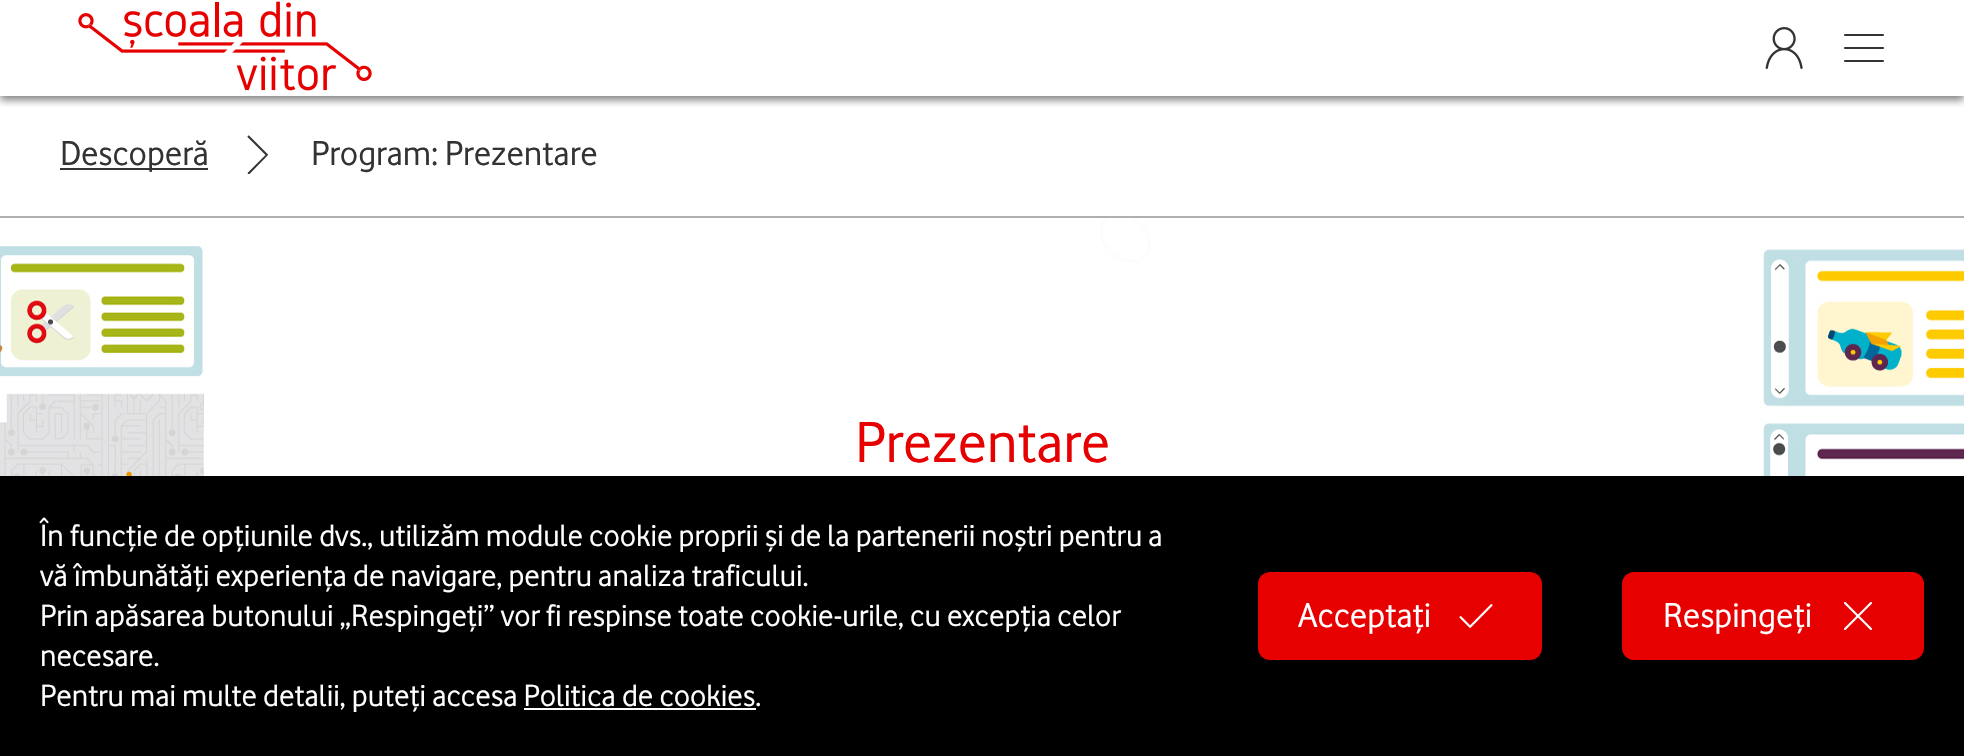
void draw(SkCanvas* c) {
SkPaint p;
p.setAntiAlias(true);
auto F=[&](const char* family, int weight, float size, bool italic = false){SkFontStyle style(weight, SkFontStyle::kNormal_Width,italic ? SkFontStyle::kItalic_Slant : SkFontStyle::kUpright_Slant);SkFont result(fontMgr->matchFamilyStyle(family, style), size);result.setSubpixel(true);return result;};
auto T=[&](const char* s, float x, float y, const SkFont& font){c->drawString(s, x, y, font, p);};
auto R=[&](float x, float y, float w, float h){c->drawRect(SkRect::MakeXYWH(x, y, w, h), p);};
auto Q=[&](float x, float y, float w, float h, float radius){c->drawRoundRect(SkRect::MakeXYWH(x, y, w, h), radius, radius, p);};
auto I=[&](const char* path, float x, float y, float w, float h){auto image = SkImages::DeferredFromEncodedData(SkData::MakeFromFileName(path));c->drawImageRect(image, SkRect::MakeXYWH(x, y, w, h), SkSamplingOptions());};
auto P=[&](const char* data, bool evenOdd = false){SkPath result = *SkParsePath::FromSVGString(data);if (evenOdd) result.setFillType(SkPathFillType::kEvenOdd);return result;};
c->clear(0xffffffff);
c->save();
c->clipRect(SkRect::MakeXYWH(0,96,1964,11));
p.setColor(0x80000000);
p.setMaskFilter(SkMaskFilter::MakeBlur(kNormal_SkBlurStyle, 4));
c->drawRect(SkRect::MakeXYWH(0,4,1964,96),p);
p.setMaskFilter(nullptr);
c->restore();
I("1.png",78,1,294,90);
I("2.png",1765,27,38,42);
I("3.png",1844,34,40,28);
p.setColor(0xffafafaf);
R(0,216,1964,2);
p.setColor(0xff333333);
R(60,168,148,2);
auto f1 = F("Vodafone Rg",400,36);
T("Descoperă",60,165,f1);
c->drawPath(P("M248 172.5c-.5 .5-.5 1 0 1.5h1.5l18.5-19v-.5l-19-19c-1 0-1.5 .5-1.5 1.5l18 18z"),p);
T("Program: Prezentare",311,165,f1);
I("4.png",0,218,1964,258);
auto f2 = F("Vodafone Rg",400,60);
p.setColor(0xffe60000);
T("Prezentare",855,462,f2);
p.setColor(0xff000000);
R(0,476,1964,280);
auto f3 = F("Vodafone Rg",400,32);
p.setColor(0xffffffff);
T("În funcție de opțiunile dvs., utilizăm module cookie proprii și de la partenerii noștri pentru a",40,546,f3);
T("vă îmbunătăți experiența de navigare, pentru analiza traficului.",40,586,f3);
T("Prin apăsarea butonului „Respingeți” vor fi respinse toate cookie-urile, cu excepția celor",40,626,f3);
T("necesare.",40,666,f3);
T("Pentru mai multe detalii, puteți accesa Politica de cookies.",40,706,f3);
R(524,708,232,2);
p.setColor(0xffe60000);
Q(1258,572,284,88,12);
p.setColor(0xffffffff);
T("Acceptați",1298,627,f1);
I("5.png",1459,604,34,24);
p.setColor(0xffe60000);
Q(1622,572,302,88,12);
p.setColor(0xffffffff);
T("Respingeți",1663,627,f1);
I("6.png",1844,602,28,28);
}
